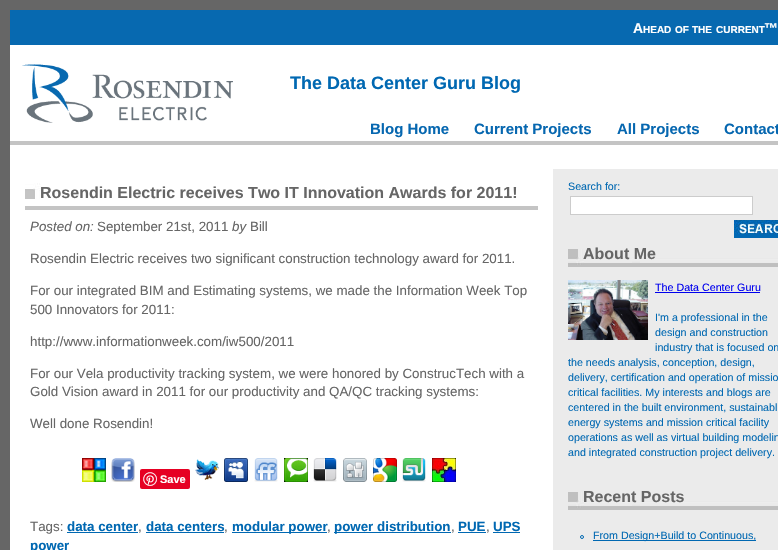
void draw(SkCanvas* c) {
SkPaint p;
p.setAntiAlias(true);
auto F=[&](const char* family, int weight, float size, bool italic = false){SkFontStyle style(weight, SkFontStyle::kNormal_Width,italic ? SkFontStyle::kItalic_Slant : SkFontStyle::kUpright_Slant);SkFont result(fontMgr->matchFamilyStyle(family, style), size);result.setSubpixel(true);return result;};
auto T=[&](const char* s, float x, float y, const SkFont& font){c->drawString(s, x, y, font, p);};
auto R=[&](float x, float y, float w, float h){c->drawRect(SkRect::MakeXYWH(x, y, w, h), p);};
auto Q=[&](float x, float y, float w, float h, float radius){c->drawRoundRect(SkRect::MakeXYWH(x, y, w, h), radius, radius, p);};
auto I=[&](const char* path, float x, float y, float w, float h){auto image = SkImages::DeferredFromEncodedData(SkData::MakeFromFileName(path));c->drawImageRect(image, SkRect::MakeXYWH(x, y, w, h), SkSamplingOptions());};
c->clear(0xff666666);
p.setColor(0xff0769b0);
R(10,10,768,35);
auto f1 = F("Liberation Sans",700,14);
p.setColor(0xffffffff);
T("A",633,33,f1);
T("™",764,33,f1);
auto f2 = F("Liberation Sans",700,10);
T("HEAD",643,33,f2);
T("OF",675,33,f2);
T("THE",692,33,f2);
T("CURRENT",716,33,f2);
R(10,45,768,96);
I("1.png",22,64,211,59);
auto f3 = F("Liberation Sans",700,18);
p.setColor(0xff0068b2);
T("The Data Center Guru Blog",290,89,f3);
auto f4 = F("Liberation Sans",700,15);
p.setColor(0xff0667b0);
T("Blog Home",370,134,f4);
T("Current Projects",474,134,f4);
T("All Projects",617,134,f4);
T("Contact",724,134,f4);
p.setColor(0xffffffff);
R(10,145,768,24);
p.setColor(0xffc4c4c4);
R(10,141,768,4);
p.setColor(0xffffffff);
R(10,169,543,381);
I("2.png",25,183,16,16);
p.setColor(0xffc4c4c4);
R(25,206,513,4);
auto f5 = F("Liberation Sans",700,16);
p.setColor(0xff666666);
T("Rosendin Electric receives Two IT Innovation Awards for 2011!",40,198,f5);
auto f6 = F("Liberation Sans",400,13.35,true);
T("Posted on:",30,231,f6);
auto f7 = F("Liberation Sans",400,13.35);
T("September 21st, 2011",97,231,f7);
T("by",232,231,f6);
T("Bill",250,231,f7);
T("Rosendin Electric receives two significant construction technology award for 2011.",30,263,f7);
T("For our integrated BIM and Estimating systems, we made the Information Week Top",30,295,f7);
T("500 Innovators for 2011:",30,314,f7);
T("http://www.informationweek.com/iw500/2011",30,346,f7);
T("For our Vela productivity tracking system, we were honored by ConstrucTech with a",30,378,f7);
T("Gold Vision award in 2011 for our productivity and QA/QC tracking systems:",30,396,f7);
T("Well done Rosendin!",30,428,f7);
I("3.png",82,458,24,24);
I("4.png",111,458,24,24);
p.setColor(0xffe60023);
Q(140,469,50,20,2);
I("5.png",143,472,14,14);
auto f8 = F("Liberation Sans",700,11);
p.setColor(0xffffffff);
T("Save",160,483,f8);
I("6.png",195,459,24,21);
I("7.png",224,458,24,24);
I("8.png",254,458,24,24);
I("9.png",284,458,24,24);
I("10.png",313,458,24,24);
I("11.png",343,458,24,24);
I("12.png",373,458,24,24);
I("13.png",402,458,24,24);
I("14.png",432,458,24,24);
p.setColor(0xff666666);
T("Tags:",30,531,f7);
auto f9 = F("Liberation Sans",700,13.35);
p.setColor(0xff0068b2);
T("data center",67,531,f9);
R(67,532,71,1);
p.setColor(0xff666666);
T(",",138,531,f7);
p.setColor(0xff0068b2);
T("data centers",146,531,f9);
R(146,532,78,1);
p.setColor(0xff666666);
T(",",224,531,f7);
p.setColor(0xff0068b2);
R(232,532,95,1);
T("modular power",232,531,f9);
p.setColor(0xff666666);
T(",",327,531,f7);
p.setColor(0xff0068b2);
R(334,532,117,1);
T("power distribution",334,531,f9);
p.setColor(0xff666666);
T(",",451,531,f7);
p.setColor(0xff0068b2);
T("PUE",458,531,f9);
R(458,532,28,1);
p.setColor(0xff666666);
T(",",486,531,f7);
p.setColor(0xff0068b2);
T("UPS",493,531,f9);
R(493,532,27,1);
T("power",30,550,f9);
p.setColor(0xffebebeb);
R(553,169,225,381);
auto f10 = F("Liberation Sans",400,10.7);
p.setColor(0xff0068b2);
T("Search for:",568,190,f10);
p.setColor(0xffffffff);
c->drawRect(SkRect::MakeXYWH(570.5,196.5,182,18),p);
p.setStroke(true);
p.setStrokeWidth(1);
p.setColor(0xffcccccc);
c->drawRect(SkRect::MakeXYWH(570.5,196.5,182,18),p);
I("15.png",734,220,44,18);
I("16.png",568,249,210,18);
p.setStroke(false);
p.setColor(0xff666666);
T("About Me",583,259,f5);
I("17.png",568,280,80,60);
p.setColor(0xff0000ee);
T("The Data Center Guru",655,291,f10);
R(655,292,105,1);
p.setColor(0xff0068b2);
T("I'm a professional in the",655,321,f10);
T("design and construction",655,336,f10);
T("industry that is focused on",655,351,f10);
T("the needs analysis, conception, design,",568,366,f10);
T("delivery, certification and operation of missio",568,381,f10);
T("critical facilities. My interests and blogs are",568,396,f10);
T("centered in the built environment, sustainabl",568,411,f10);
T("energy systems and mission critical facility",568,426,f10);
T("operations as well as virtual building modelin",568,441,f10);
T("and integrated construction project delivery.",568,456,f10);
I("16.png",568,492,210,18);
p.setColor(0xff666666);
T("Recent Posts",583,502,f5);
p.setStroke(true);
p.setColor(0xff0068b2);
c->drawCircle(582,537,1.5,p);
p.setStroke(false);
R(593,540,163,1);
T("From Design+Build to Continuous,",593,539,f10);
}
